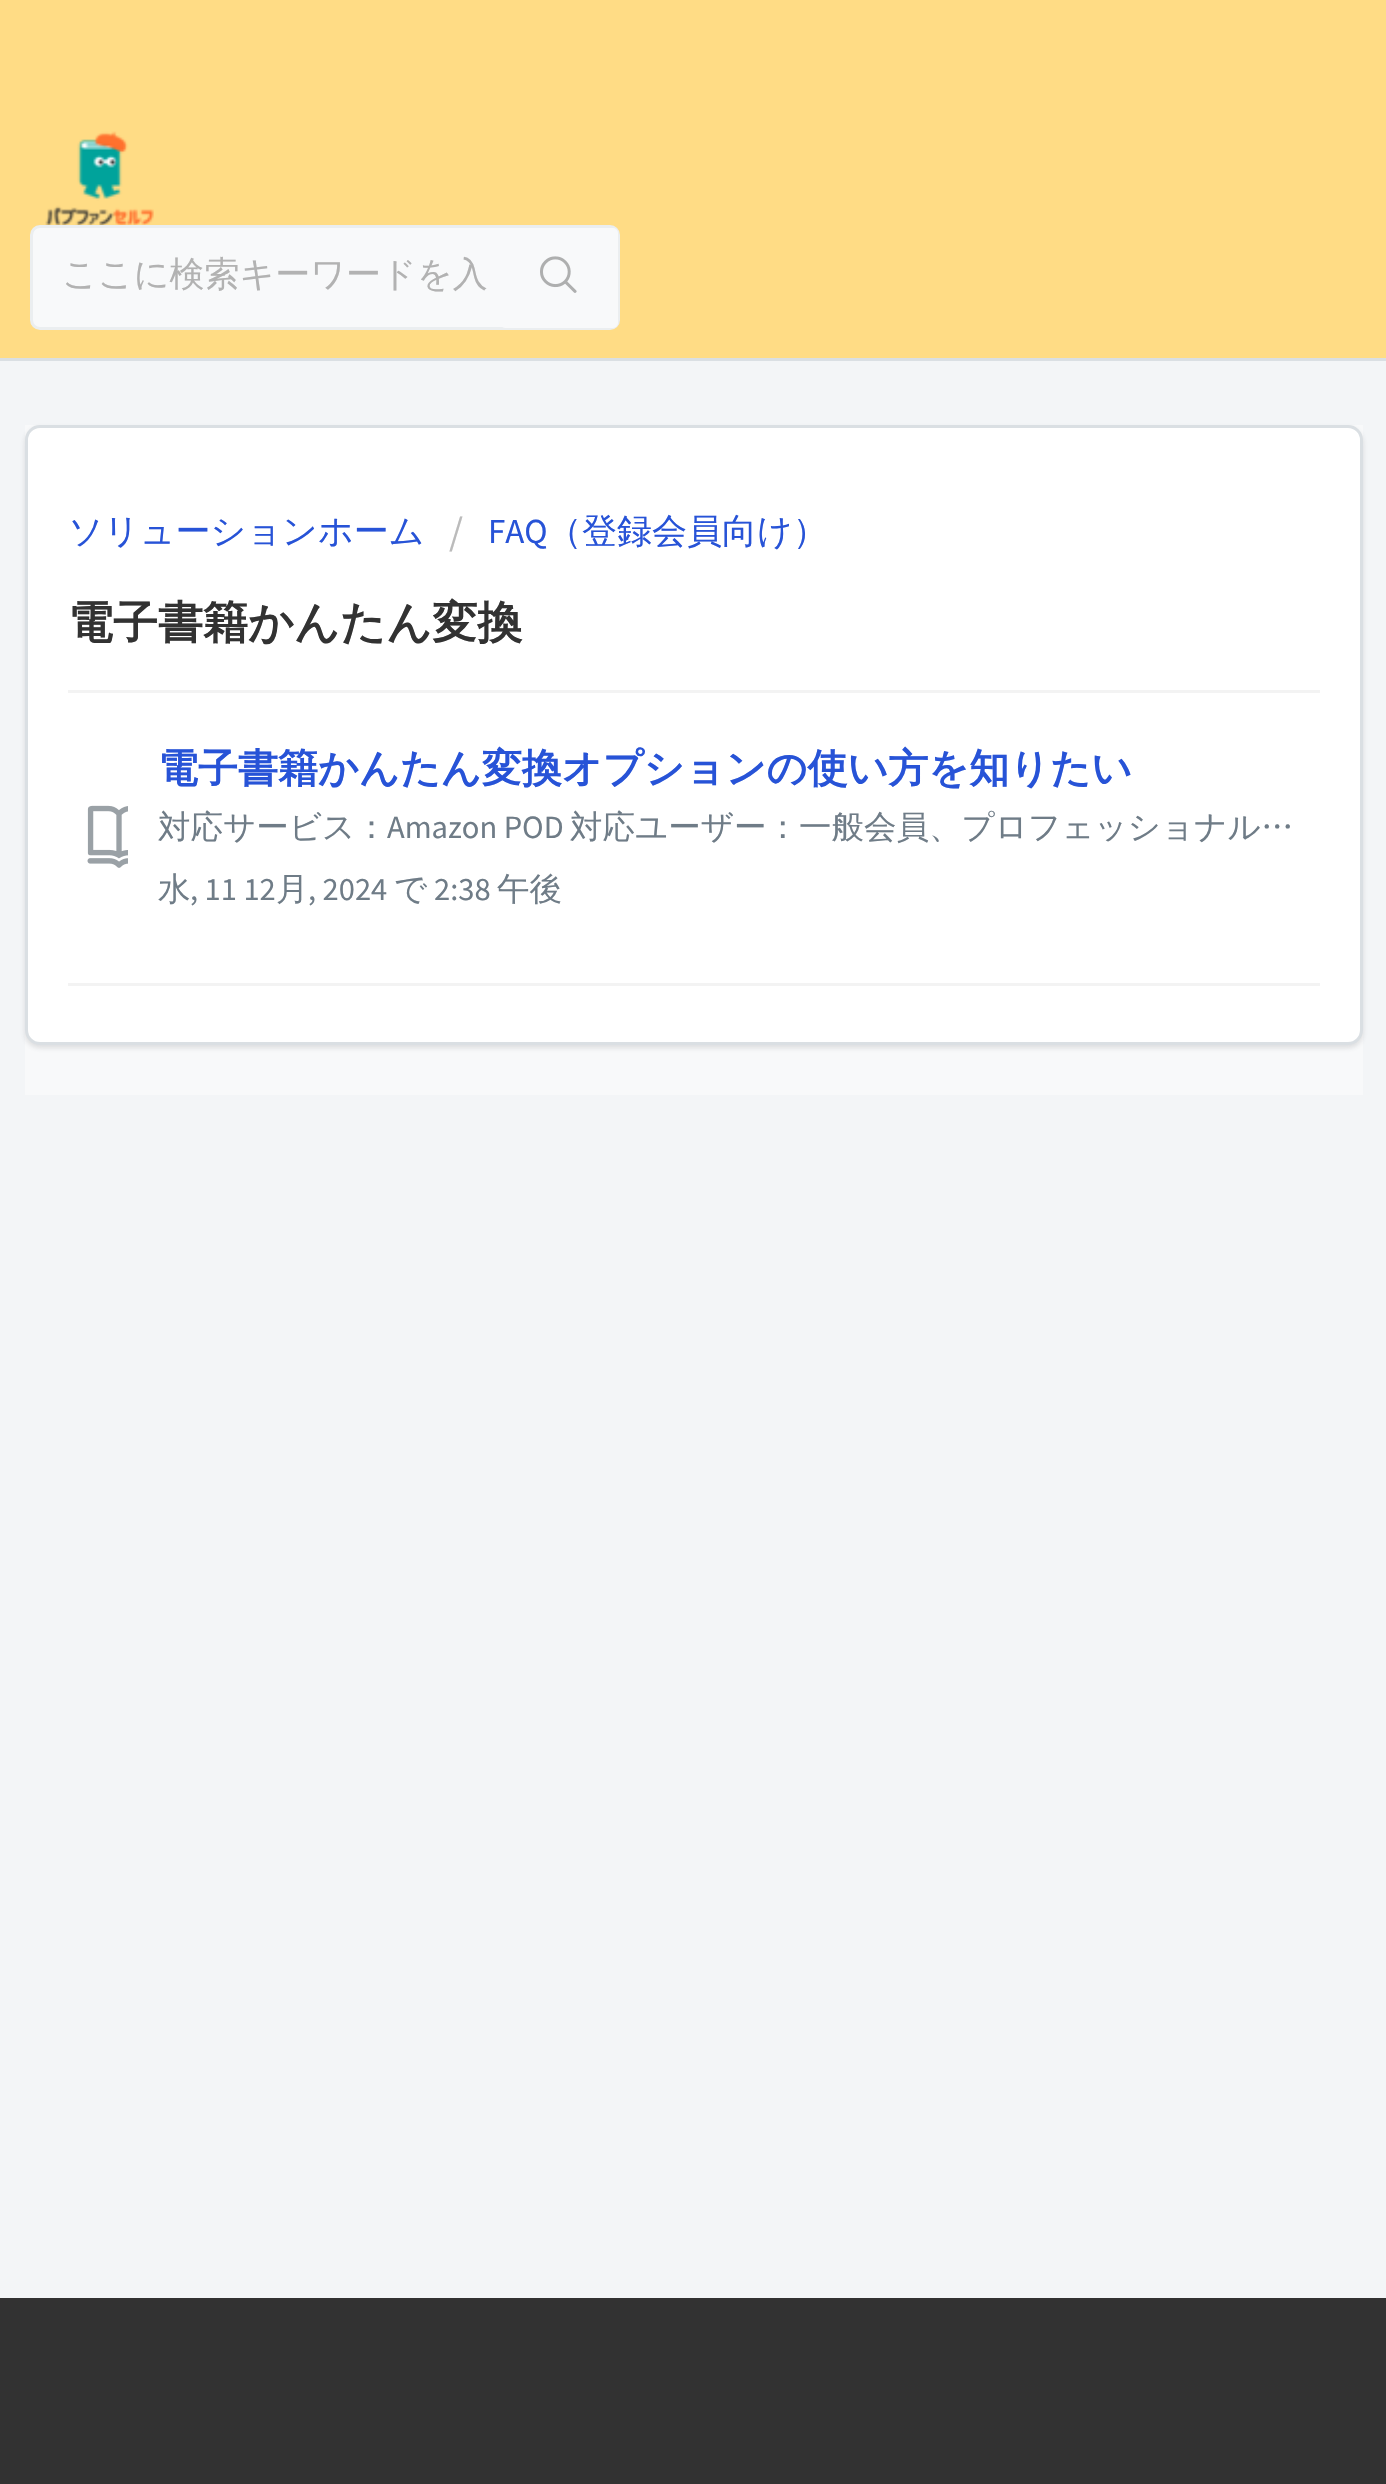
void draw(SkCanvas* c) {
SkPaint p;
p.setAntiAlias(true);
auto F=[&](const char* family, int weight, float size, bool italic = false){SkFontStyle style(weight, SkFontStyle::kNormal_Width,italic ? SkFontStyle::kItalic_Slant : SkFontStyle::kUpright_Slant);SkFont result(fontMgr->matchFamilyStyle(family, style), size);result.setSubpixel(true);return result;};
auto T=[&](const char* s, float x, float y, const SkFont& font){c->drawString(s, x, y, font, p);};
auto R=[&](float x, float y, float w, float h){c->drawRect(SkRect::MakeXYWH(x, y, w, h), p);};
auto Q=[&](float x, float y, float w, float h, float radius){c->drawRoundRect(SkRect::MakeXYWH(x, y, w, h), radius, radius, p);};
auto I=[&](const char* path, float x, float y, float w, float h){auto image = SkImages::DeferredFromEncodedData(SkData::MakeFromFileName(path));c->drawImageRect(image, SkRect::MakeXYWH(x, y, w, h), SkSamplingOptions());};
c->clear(0xfff3f5f7);
p.setColor(0xffffdc85);
R(0,0,1386,358);
p.setColor(0xffdadfe3);
R(0,358,1386,3);
I("1.png",45,131,109,94);
p.setColor(0xfff8f9fa);
c->drawRoundRect(SkRect::MakeXYWH(31.5,226.5,587,102),8.5,8.5,p);
p.setStroke(true);
p.setStrokeWidth(3);
p.setColor(0xffebeef0);
c->drawRoundRect(SkRect::MakeXYWH(31.5,226.5,587,102),8.5,8.5,p);
auto f1 = F("WenQuanYi Zen Hei",500,35);
p.setStroke(false);
p.setColor(0xffb2b2b2);
T("ここに検索キーワードを入",62,286,f1);
p.setColor(0xfff8f9fa);
Q(500,228,118,100,5);
I("2.png",540,256,37,37);
R(25,425,1338,670);
p.setColor(0x263f3f44);
p.setMaskFilter(SkMaskFilter::MakeBlur(kNormal_SkBlurStyle, 2.5));
c->drawRoundRect(SkRect::MakeXYWH(25,428,1338,620),15,15,p);
p.setMaskFilter(nullptr);
p.setColor(0xffffffff);
c->drawRoundRect(SkRect::MakeXYWH(26.5,426.5,1335,617),13.5,13.5,p);
p.setStroke(true);
p.setColor(0xffdadfe3);
c->drawRoundRect(SkRect::MakeXYWH(26.5,426.5,1335,617),13.5,13.5,p);
p.setStroke(false);
p.setColor(0xff2753d7);
T("ソリューションホーム",68,543,f1);
auto f2 = F("Source Sans Pro",400,40);
p.setColor(0xffbbbbbb);
T("/",449,545,f2);
auto f3 = F("Source Sans Pro",400,35);
p.setColor(0xff2753d7);
T("FAQ",488,543,f3);
T("（登録会員向け）",547,543,f1);
auto f4 = F("WenQuanYi Zen Hei",700,45);
p.setColor(0xff323232);
T("電子書籍かんたん変換",68,638,f4);
p.setColor(0xfff3f3f3);
R(68,983,1252,3);
R(68,690,1252,3);
auto f5 = F("WenQuanYi Zen Hei",700,40);
p.setColor(0xff2753d7);
T("電子書籍かんたん変換オプションの使い方を知りたい",158,782,f5);
I("3.png",87,805,41,63);
auto f6 = F("WenQuanYi Zen Hei",500,32.5);
p.setColor(0xff6f7c87);
T("対応サービス：",158,838,f6);
auto f7 = F("Source Sans Pro",400,32.5);
T("Amazon POD",387,838,f7);
T("対応ユーザー：一般会員、プロフェッショナル…",570,838,f6);
T("水",158,900,f6);
T(", 11 12",190,900,f7);
T("月",276,900,f6);
T(", 2024",308,900,f7);
T("で",394,900,f6);
T("2:38",434,900,f7);
T("午後",497,900,f6);
p.setColor(0xff323232);
R(0,2298,1386,186);
}
